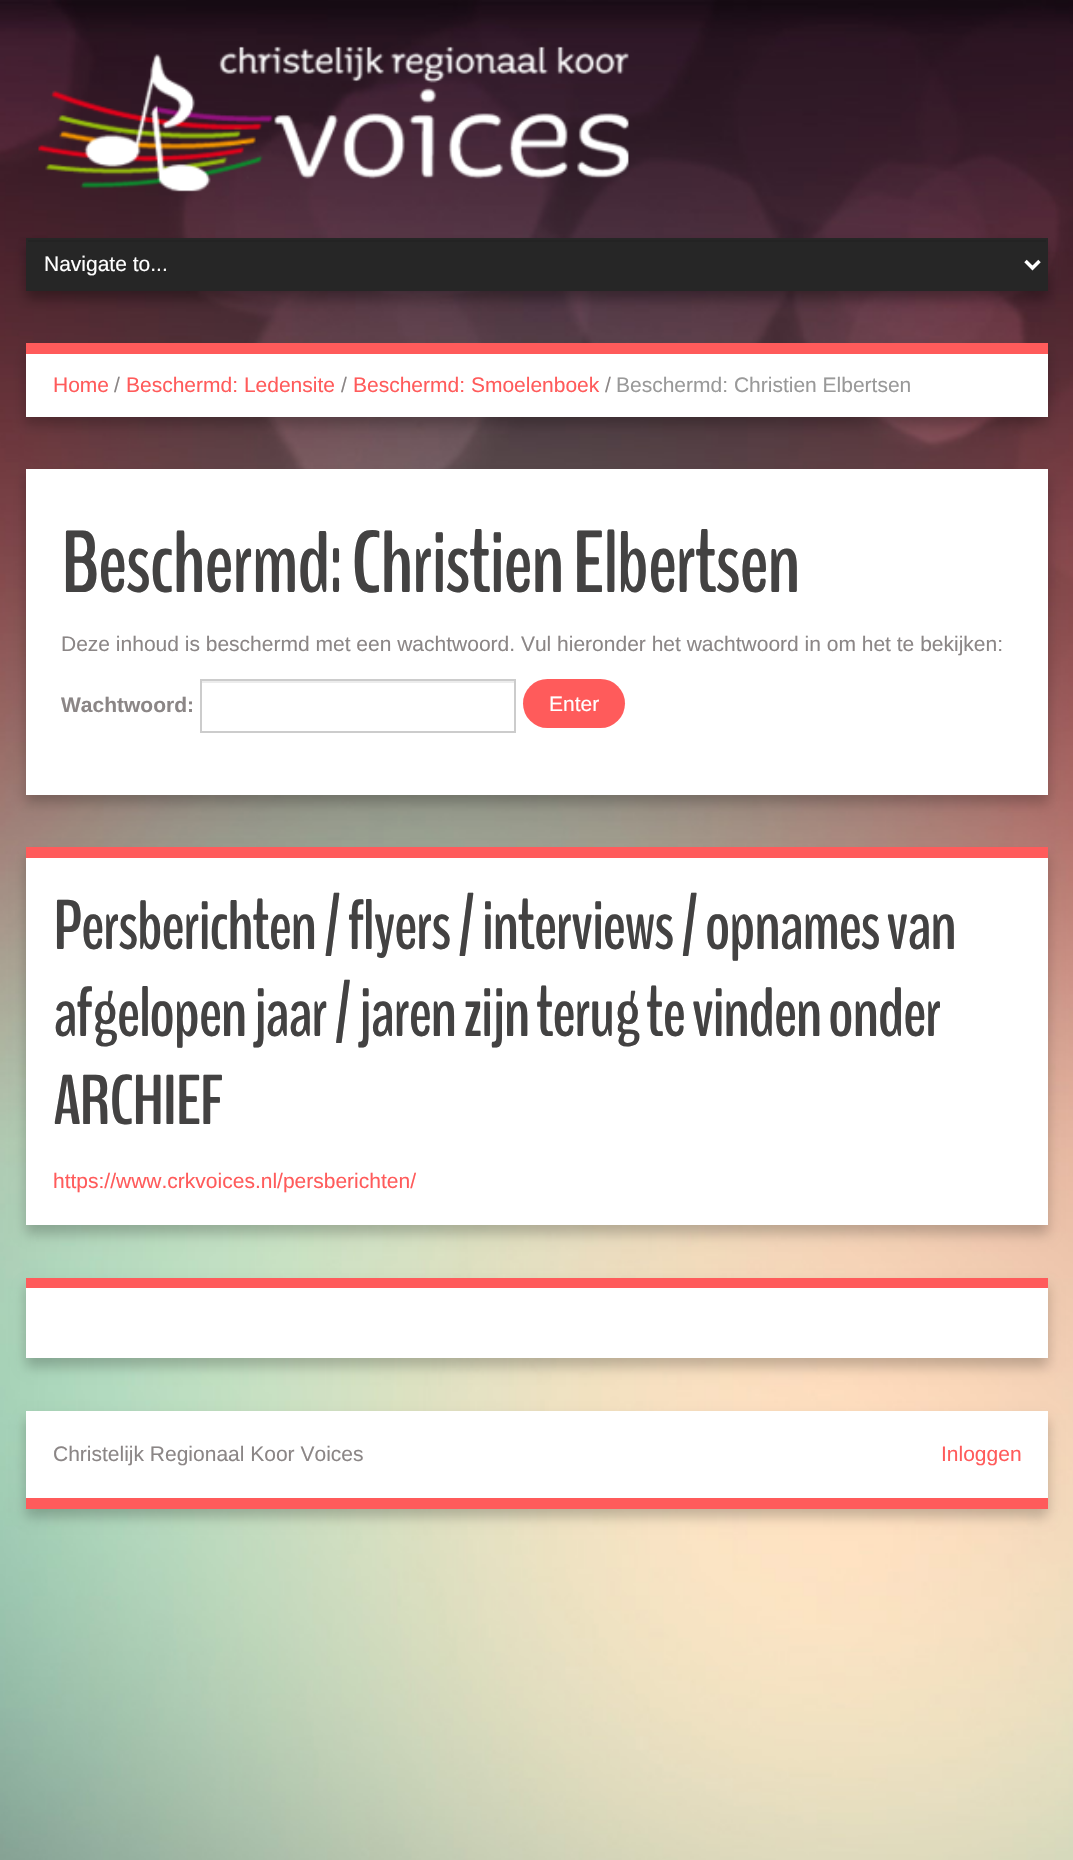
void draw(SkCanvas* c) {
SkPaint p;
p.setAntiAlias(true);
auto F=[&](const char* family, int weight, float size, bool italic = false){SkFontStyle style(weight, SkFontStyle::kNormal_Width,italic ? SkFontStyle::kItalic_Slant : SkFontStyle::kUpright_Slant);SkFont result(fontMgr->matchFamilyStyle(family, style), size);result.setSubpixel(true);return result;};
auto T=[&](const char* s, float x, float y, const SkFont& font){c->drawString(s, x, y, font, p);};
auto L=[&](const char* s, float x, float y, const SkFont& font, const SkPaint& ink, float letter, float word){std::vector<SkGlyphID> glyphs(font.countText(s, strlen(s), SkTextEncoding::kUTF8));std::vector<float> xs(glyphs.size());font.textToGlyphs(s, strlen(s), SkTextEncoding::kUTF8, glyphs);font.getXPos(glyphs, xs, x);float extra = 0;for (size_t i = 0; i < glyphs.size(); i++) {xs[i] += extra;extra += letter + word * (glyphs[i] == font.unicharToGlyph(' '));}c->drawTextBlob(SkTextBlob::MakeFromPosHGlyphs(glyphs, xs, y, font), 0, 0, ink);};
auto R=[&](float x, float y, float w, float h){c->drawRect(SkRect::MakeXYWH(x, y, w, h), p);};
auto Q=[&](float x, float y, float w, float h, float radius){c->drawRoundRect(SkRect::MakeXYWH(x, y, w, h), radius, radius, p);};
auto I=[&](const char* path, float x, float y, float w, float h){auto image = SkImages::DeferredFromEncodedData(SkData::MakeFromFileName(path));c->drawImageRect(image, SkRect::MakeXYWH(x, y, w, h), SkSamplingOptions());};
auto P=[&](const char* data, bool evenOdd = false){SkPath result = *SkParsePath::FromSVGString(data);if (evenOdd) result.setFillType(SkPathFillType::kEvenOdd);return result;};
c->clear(0xffffffff);
I("1.png",0,0,1073,1860);
I("2.png",38,46,591,146);
p.setColor(0x54000000);
p.setMaskFilter(SkMaskFilter::MakeBlur(kNormal_SkBlurStyle, 6));
c->drawRect(SkRect::MakeXYWH(26,247,1022,52),p);
p.setMaskFilter(nullptr);
p.setColor(0xff262626);
R(28,242,1018,47);
p.setColor(0xff232323);
R(28,240,1019,2);
p.setStroke(true);
p.setStrokeWidth(2);
p.setColor(0xff262626);
c->drawRect(SkRect::MakeXYWH(27,239,1020,51),p);
p.setStrokeWidth(3.5);
p.setColor(0xffffffff);
c->drawPath(P("M1025.5 261l7 7l7-7"),p);
auto f1 = F("Liberation Sans",400,21);
p.setStroke(false);
T("Navigate to...",44,271,f1);
p.setColor(0x38000000);
p.setMaskFilter(SkMaskFilter::MakeBlur(kNormal_SkBlurStyle, 6));
c->drawRect(SkRect::MakeXYWH(26,352,1022,73),p);
p.setMaskFilter(nullptr);
p.setColor(0xffffffff);
R(26,354,1022,63);
p.setColor(0xffff5b5b);
R(26,343,1022,11);
T("Home",53,392,f1);
p.setColor(0xff8b8686);
T("/",114,392,f1);
p.setColor(0xffff5b5b);
T("Beschermd: Ledensite",126,392,f1);
p.setColor(0xff8b8686);
T("/",341,392,f1);
p.setColor(0xffff5b5b);
T("Beschermd: Smoelenboek",353,392,f1);
p.setColor(0xff8b8686);
T("/",605,392,f1);
p.setColor(0xff999999);
T("Beschermd: Christien Elbertsen",616,392,f1);
p.setColor(0x38000000);
p.setMaskFilter(SkMaskFilter::MakeBlur(kNormal_SkBlurStyle, 6));
c->drawRect(SkRect::MakeXYWH(26,478,1022,325),p);
p.setMaskFilter(nullptr);
p.setColor(0xffffffff);
R(26,469,1022,326);
auto f2 = F("BenchNine",700,87.5);
p.setColor(0xff434242);
L("Beschermd: Christien Elbertsen",61,592,f2,p,-1.75,0);
p.setColor(0xff8b8686);
T("Deze inhoud is beschermd met een wachtwoord. Vul hieronder het wachtwoord in om het te bekijken:",61,651,f1);
auto f3 = F("Liberation Sans",700,21);
T("Wachtwoord:",61,712,f3);
p.setColor(0xffececec);
R(201,681,314,2);
p.setStroke(true);
p.setStrokeWidth(2);
p.setColor(0xffcccccc);
c->drawRect(SkRect::MakeXYWH(201,680,314,52),p);
p.setStroke(false);
p.setColor(0xffff5b5b);
Q(523,679,102,49,24.5);
p.setColor(0xffffffff);
T("Enter",549,711,f1);
p.setColor(0x38000000);
p.setMaskFilter(SkMaskFilter::MakeBlur(kNormal_SkBlurStyle, 6));
c->drawRect(SkRect::MakeXYWH(26,856,1022,378),p);
p.setMaskFilter(nullptr);
p.setColor(0xffffffff);
R(26,858,1022,367);
p.setColor(0xffff5b5b);
R(26,847,1022,11);
auto f4 = F("BenchNine",700,70);
p.setColor(0xff434242);
L("Persberichten / flyers / interviews / opnames van",53,949,f4,p,-1.75,0);
L("afgelopen jaar / jaren zijn terug te vinden onder",53,1036,f4,p,-1.75,0);
L("ARCHIEF",53,1124,f4,p,-1.75,0);
p.setColor(0xffff5b5b);
T("https://www.crkvoices.nl/persberichten/",53,1188,f1);
p.setColor(0x38000000);
p.setMaskFilter(SkMaskFilter::MakeBlur(kNormal_SkBlurStyle, 6));
c->drawRect(SkRect::MakeXYWH(26,1286,1022,81),p);
p.setMaskFilter(nullptr);
p.setColor(0xffffffff);
R(26,1288,1022,70);
p.setColor(0xffff5b5b);
R(26,1278,1022,10);
p.setColor(0x38000000);
p.setMaskFilter(SkMaskFilter::MakeBlur(kNormal_SkBlurStyle, 6));
c->drawRect(SkRect::MakeXYWH(26,1419,1022,98),p);
p.setMaskFilter(nullptr);
p.setColor(0xffffffff);
R(26,1411,1022,87);
p.setColor(0xffff5b5b);
R(26,1498,1022,11);
p.setColor(0xff8b8686);
T("Christelijk Regionaal Koor Voices",53,1461,f1);
p.setColor(0xffff5b5b);
T("Inloggen",941,1461,f1);
}
